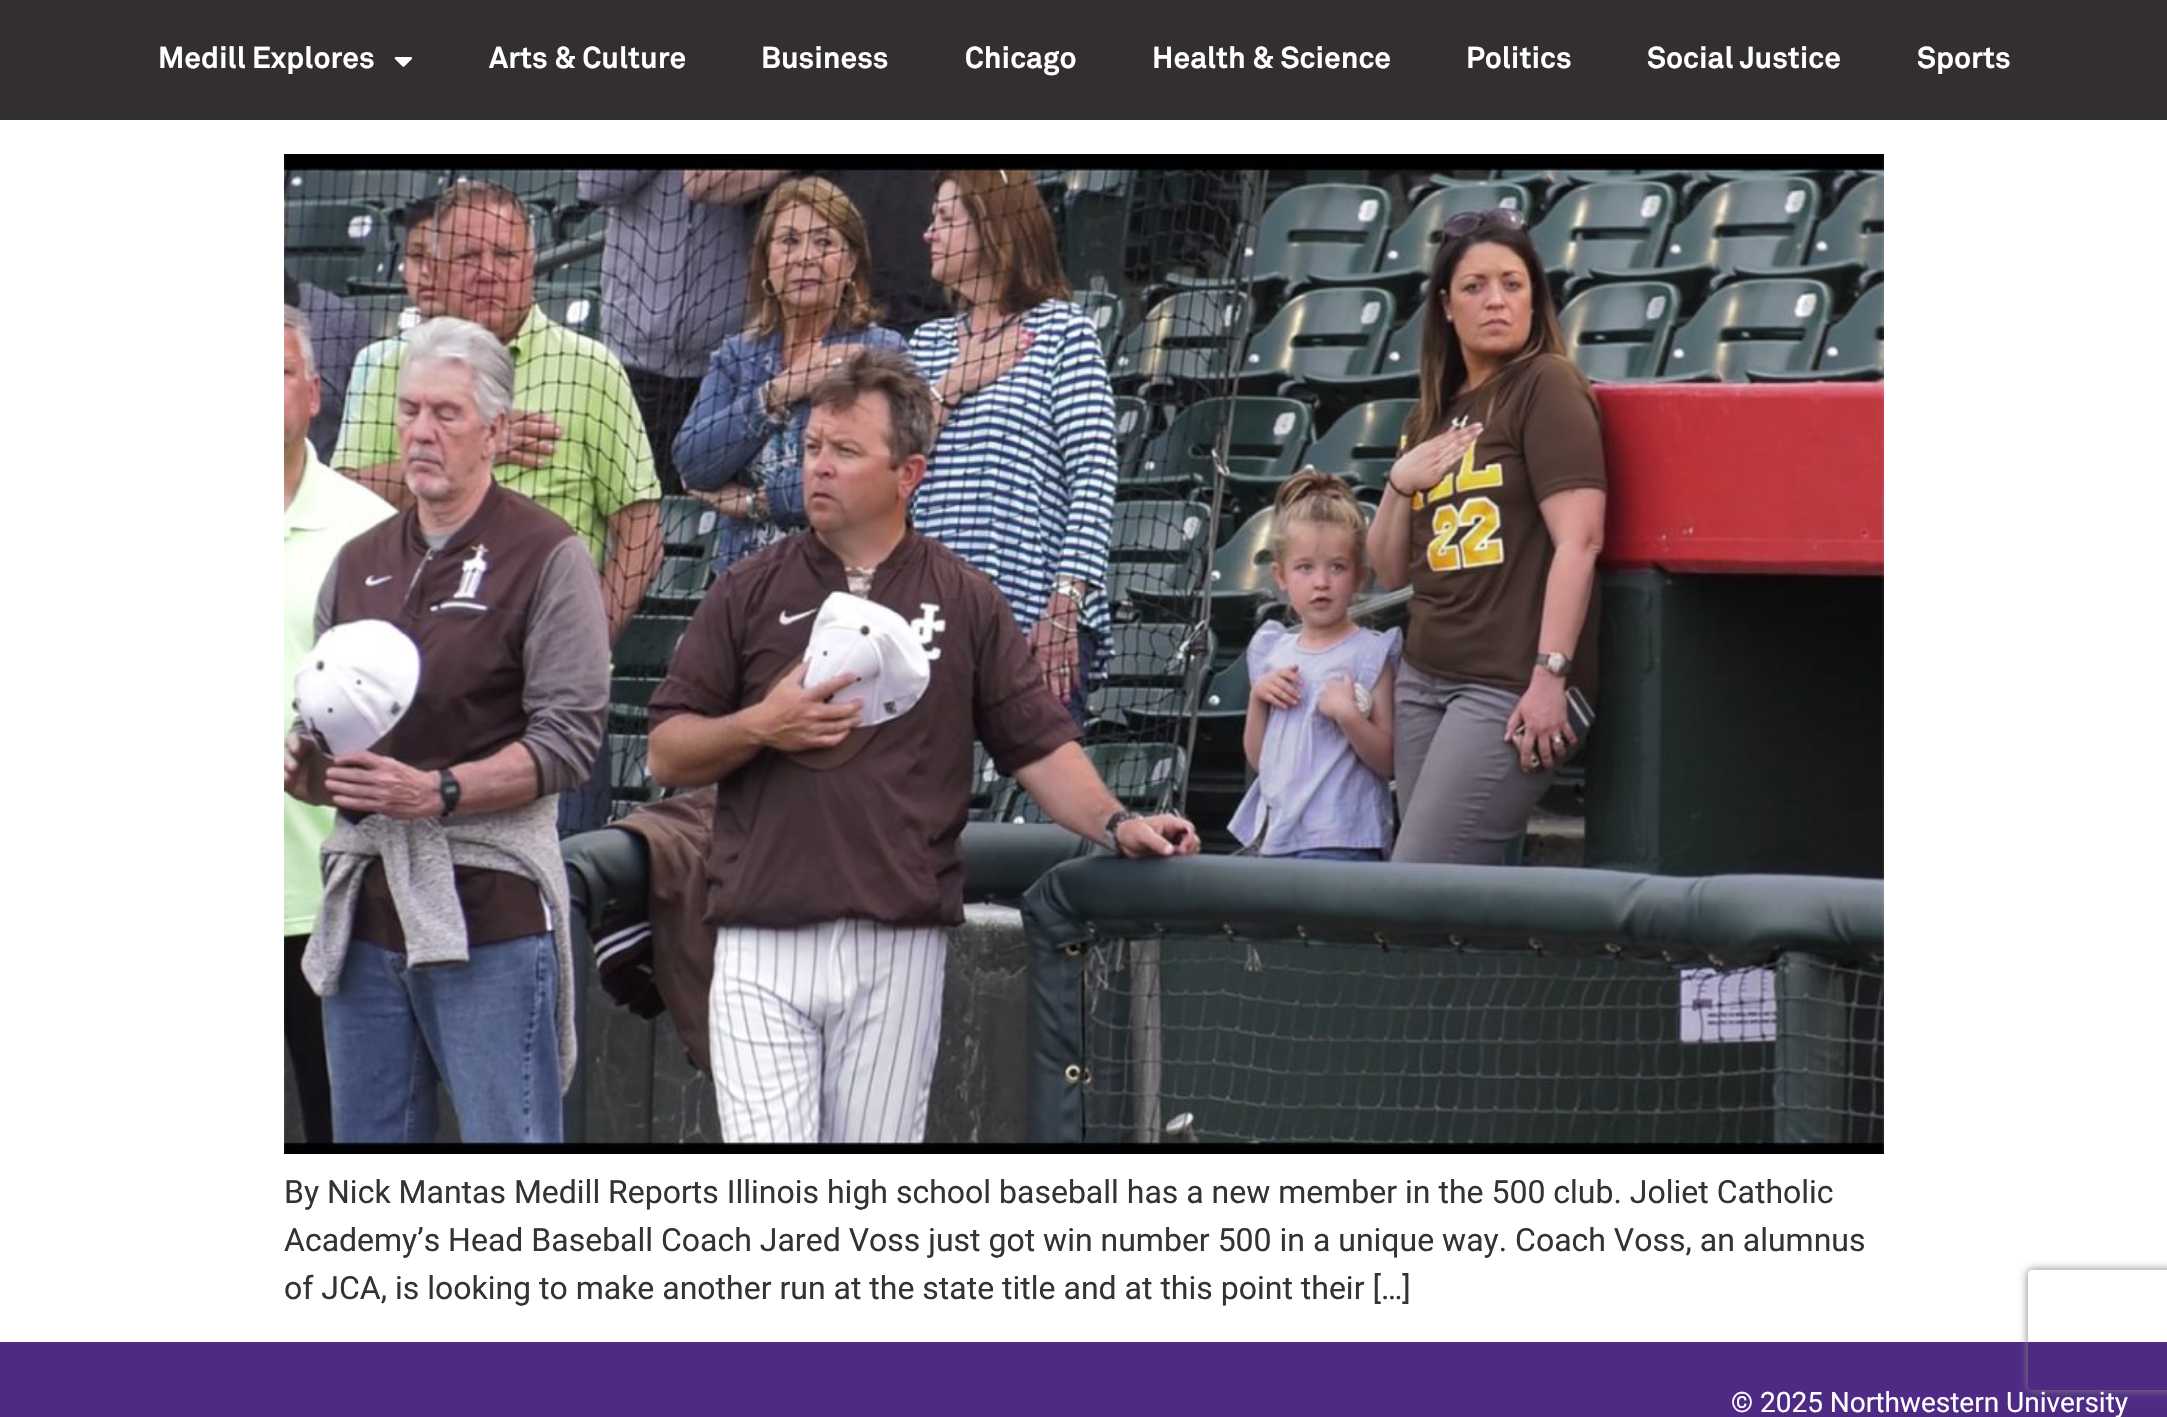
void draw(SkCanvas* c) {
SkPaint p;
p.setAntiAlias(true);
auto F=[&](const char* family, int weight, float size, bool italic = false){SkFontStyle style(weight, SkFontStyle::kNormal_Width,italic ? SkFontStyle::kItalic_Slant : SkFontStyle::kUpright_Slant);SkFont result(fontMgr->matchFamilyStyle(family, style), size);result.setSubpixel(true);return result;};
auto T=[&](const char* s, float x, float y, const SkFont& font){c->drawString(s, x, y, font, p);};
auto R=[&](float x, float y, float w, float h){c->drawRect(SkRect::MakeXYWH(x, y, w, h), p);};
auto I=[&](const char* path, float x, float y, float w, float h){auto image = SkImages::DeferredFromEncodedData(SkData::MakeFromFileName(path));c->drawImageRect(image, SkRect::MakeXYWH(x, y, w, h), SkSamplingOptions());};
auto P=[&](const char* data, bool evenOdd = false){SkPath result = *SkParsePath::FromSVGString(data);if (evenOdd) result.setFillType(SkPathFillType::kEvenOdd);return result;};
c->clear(0xffffffff);
p.setColor(0xff332f2f);
R(0,0,2167,120);
auto f1 = F("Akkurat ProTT",700,30);
p.setColor(0xffffffff);
T("Medill Explores",158,68,f1);
I("1.png",394,57,19,10);
T("Arts & Culture",489,68,f1);
T("Business",761,68,f1);
T("Chicago",965,68,f1);
T("Health & Science",1152,68,f1);
T("Politics",1466,68,f1);
T("Social Justice",1647,68,f1);
T("Sports",1917,68,f1);
I("2.png",284,154,1600,1000);
auto f2 = F("Roboto",400,32);
p.setColor(0xff333333);
T("By Nick Mantas Medill Reports Illinois high school baseball has a new member in the 500 club. Joliet Catholic",284,1203,f2);
T("Academy’s Head Baseball Coach Jared Voss just got win number 500 in a unique way. Coach Voss, an alumnus",284,1251,f2);
T("of JCA, is looking to make another run at the state title and at this point their […]",284,1299,f2);
p.setColor(0xff4e2a85);
R(0,1342,2167,75);
c->save();
c->clipPath(P("M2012 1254h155v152h-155zm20 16h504c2 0 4 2 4 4v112c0 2-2 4-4 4h-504c-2 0-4-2-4-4v-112c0-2 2-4 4-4z",true),true);
p.setColor(0xff808080);
p.setMaskFilter(SkMaskFilter::MakeBlur(kNormal_SkBlurStyle, 5));
c->drawRoundRect(SkRect::MakeXYWH(2028,1270,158,120),4,4,p);
p.setMaskFilter(nullptr);
c->restore();
auto f3 = F("Roboto",400,28);
p.setColor(0xffffffff);
T("© 2025 Northwestern University",1731,1412,f3);
}
